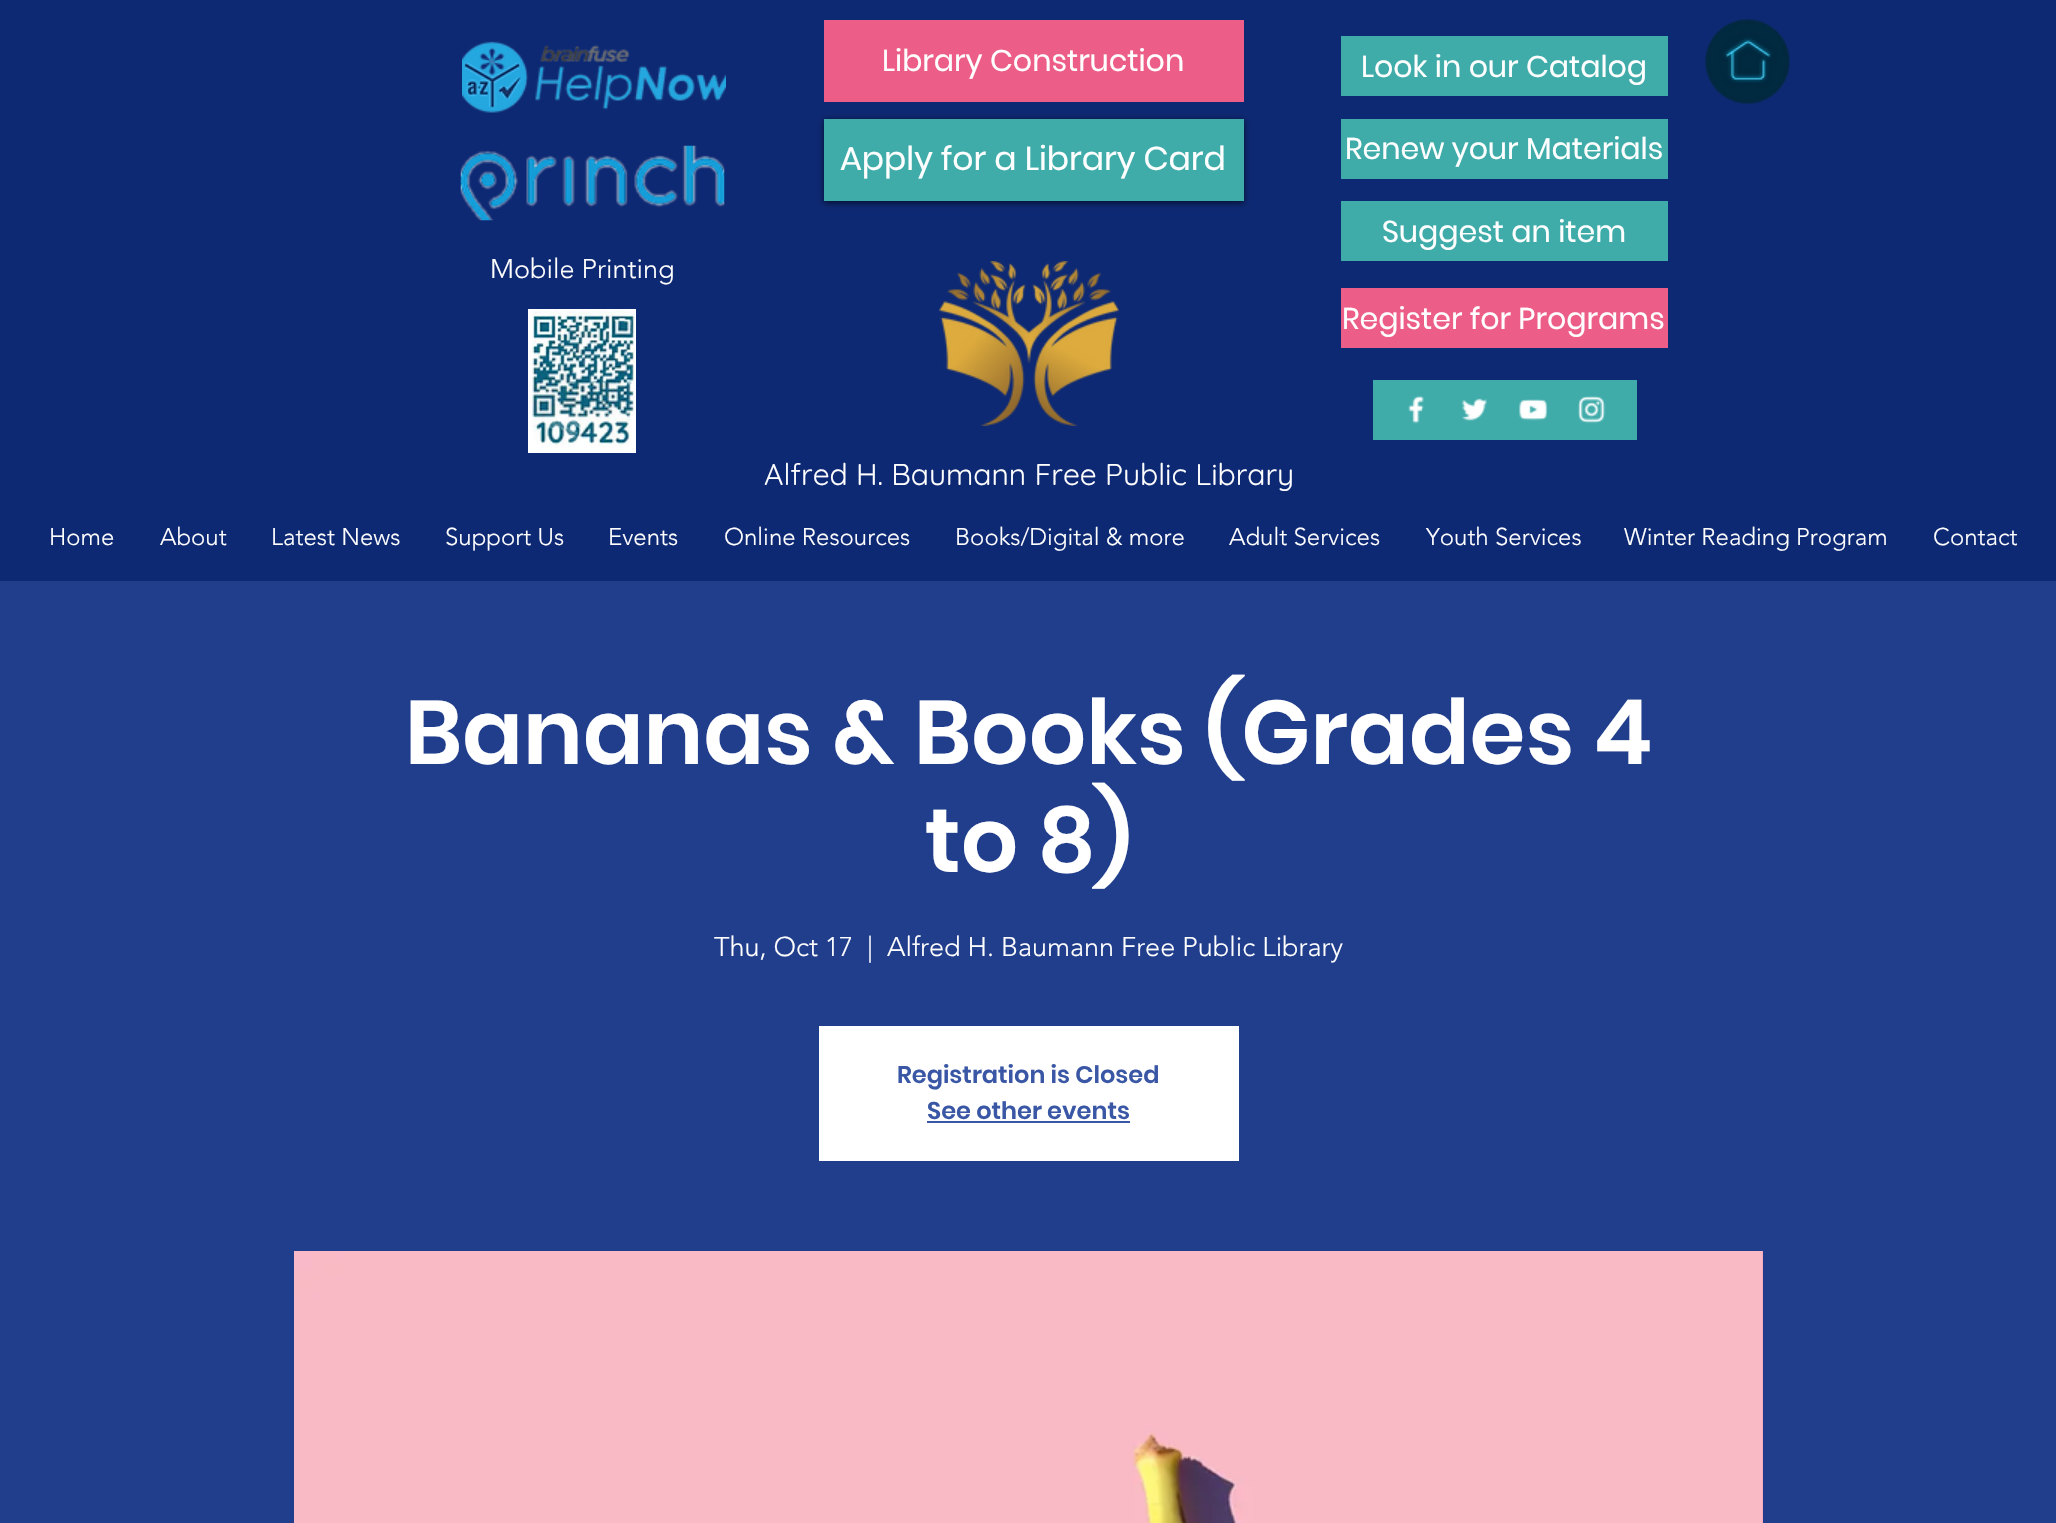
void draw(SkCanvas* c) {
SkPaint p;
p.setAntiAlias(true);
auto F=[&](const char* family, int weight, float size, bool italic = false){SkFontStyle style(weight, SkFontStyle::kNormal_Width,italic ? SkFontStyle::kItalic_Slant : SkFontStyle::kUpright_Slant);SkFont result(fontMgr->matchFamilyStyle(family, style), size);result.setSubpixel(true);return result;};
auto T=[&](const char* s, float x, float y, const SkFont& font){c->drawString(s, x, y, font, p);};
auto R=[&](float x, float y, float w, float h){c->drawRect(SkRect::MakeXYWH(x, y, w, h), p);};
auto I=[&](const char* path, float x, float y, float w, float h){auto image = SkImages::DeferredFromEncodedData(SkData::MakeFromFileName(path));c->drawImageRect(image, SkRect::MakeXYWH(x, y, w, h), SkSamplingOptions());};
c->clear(0xff213e8c);
p.setColor(0xff0e2973);
R(0,0,2056,581);
I("1.png",462,41,264,72);
p.setColor(0xffec5e87);
R(824,20,420,82);
auto f1 = F("Poppins",400,30);
p.setColor(0xffffffff);
T("Library Construction",882,71,f1);
p.setColor(0xff3facaa);
R(1341,36,327,60);
p.setColor(0xffffffff);
T("Look in our Catalog",1361,77,f1);
I("2.png",1705,19,85,85);
I("3.png",460,145,265,76);
p.setColor(0x99000000);
p.setMaskFilter(SkMaskFilter::MakeBlur(kNormal_SkBlurStyle, 3));
c->drawRect(SkRect::MakeXYWH(824,120,420,83),p);
p.setMaskFilter(nullptr);
p.setColor(0xff3facaa);
R(824,119,420,82);
auto f2 = F("Poppins",400,33);
p.setColor(0xffffffff);
T("Apply for a Library Card",840,170,f2);
p.setColor(0xff3facaa);
R(1341,119,327,60);
p.setColor(0xffffffff);
T("Renew your Materials",1345,159,f1);
p.setColor(0xff3facaa);
R(1341,201,327,60);
p.setColor(0xffffffff);
T("Suggest an item",1382,242,f1);
auto f3 = F("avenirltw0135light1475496",300,27);
T("Mobile Printing",490,278,f3);
I("4.png",939,261,180,165);
p.setColor(0xffec5e87);
R(1341,288,327,60);
p.setColor(0xffffffff);
T("Register for Programs",1342,329,f1);
I("5.png",528,309,108,144);
p.setColor(0xff3facaa);
R(1373,380,264,60);
I("6.png",1408,395,16,29);
I("7.png",1462,398,25,23);
I("8.png",1519,399,29,22);
I("9.png",1578,396,28,28);
auto f4 = F("Quicksand",400,30);
p.setColor(0xffffffff);
T("Alfred H. Baumann Free Public Library",764,485,f4);
auto f5 = F("avenirltw0135light1475496",300,24);
T("Home",49,545,f5);
T("About",160,545,f5);
T("Latest News",271,545,f5);
T("Support Us",445,545,f5);
T("Events",608,545,f5);
T("Online Resources",724,545,f5);
T("Books/Digital & more",955,545,f5);
T("Adult Services",1229,545,f5);
T("Youth Services",1426,545,f5);
T("Winter Reading Program",1624,545,f5);
T("Contact",1933,545,f5);
auto f6 = F("Poppins",600,90);
T("Bananas & Books (Grades 4",405,764,f6);
T("to 8)",925,872,f6);
T("Thu, Oct 17",714,956,f3);
T("|",867,956,f3);
T("Alfred H. Baumann Free Public Library",887,956,f3);
R(819,1026,420,135);
auto f7 = F("Poppins",600,24);
p.setColor(0xff3a57a6);
T("Registration is Closed",897,1083,f7);
T("See other events",927,1119,f7);
R(927,1121,203,2);
p.setColor(0xfff5a6bd);
R(1762,1251,1,272);
I("10.png",294,1251,1469,272);
}
